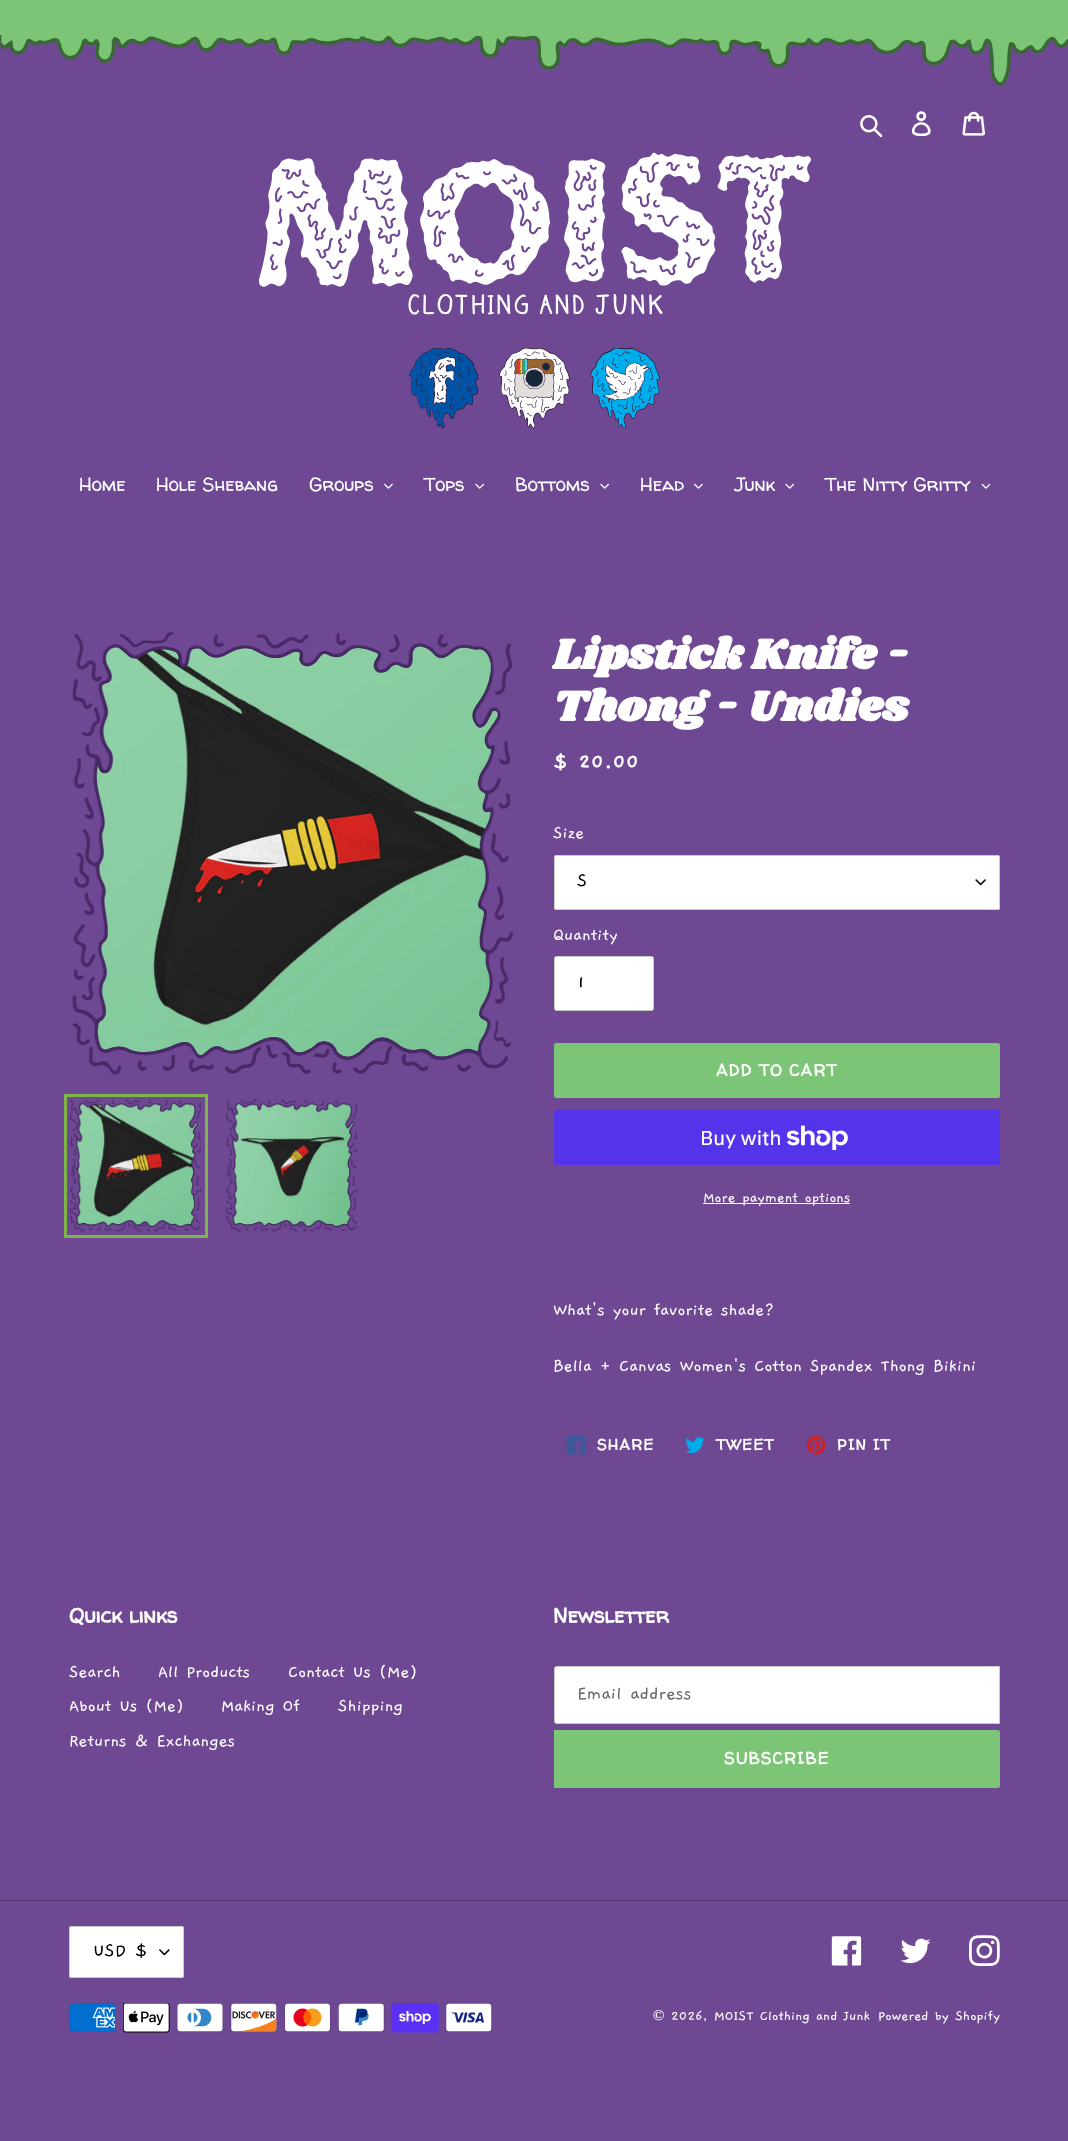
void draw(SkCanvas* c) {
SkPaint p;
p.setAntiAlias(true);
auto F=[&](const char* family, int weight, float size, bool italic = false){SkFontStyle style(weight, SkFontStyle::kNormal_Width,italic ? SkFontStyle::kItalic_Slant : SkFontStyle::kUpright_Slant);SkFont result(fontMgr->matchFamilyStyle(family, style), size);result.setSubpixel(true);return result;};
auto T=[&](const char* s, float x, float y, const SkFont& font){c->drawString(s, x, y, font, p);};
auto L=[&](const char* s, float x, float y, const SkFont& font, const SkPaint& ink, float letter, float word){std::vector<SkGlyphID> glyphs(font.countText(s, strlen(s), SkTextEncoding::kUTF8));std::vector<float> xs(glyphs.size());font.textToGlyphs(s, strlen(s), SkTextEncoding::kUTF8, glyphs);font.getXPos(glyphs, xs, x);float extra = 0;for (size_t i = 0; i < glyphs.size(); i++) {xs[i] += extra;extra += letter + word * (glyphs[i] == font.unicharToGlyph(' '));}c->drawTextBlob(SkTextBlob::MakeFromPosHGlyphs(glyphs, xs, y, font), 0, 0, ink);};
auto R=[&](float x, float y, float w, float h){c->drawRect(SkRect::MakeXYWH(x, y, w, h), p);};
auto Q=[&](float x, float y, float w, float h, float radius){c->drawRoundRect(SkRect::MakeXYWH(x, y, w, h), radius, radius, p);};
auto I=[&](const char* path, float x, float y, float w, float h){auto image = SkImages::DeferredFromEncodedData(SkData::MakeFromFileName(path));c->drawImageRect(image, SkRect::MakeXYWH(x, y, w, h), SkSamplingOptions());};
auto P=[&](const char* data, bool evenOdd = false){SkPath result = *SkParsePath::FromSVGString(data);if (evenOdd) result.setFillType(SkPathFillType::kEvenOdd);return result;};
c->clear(0xff6e4893);
p.setColor(0xff7cc576);
R(0,0,1068,35);
I("1.png",0,35,1068,51);
I("2.png",860,115,23,23);
I("3.png",911,111,20,25);
I("4.png",962,111,23,25);
I("5.png",258,152,553,163);
I("6.png",409,348,70,81);
I("7.png",499,348,71,81);
I("8.png",590,348,70,81);
auto f1 = F("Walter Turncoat",400,18.75);
p.setColor(0xffffffff);
T("Home",79,491,f1);
T("Hole Shebang",156,491,f1);
T("Groups",309,491,f1);
I("9.png",384,483,9,6);
T("Tops",424,491,f1);
I("10.png",475,483,9,6);
T("Bottoms",515,491,f1);
I("10.png",600,483,9,6);
T("Head",640,491,f1);
I("9.png",694,483,9,6);
T("Junk",735,491,f1);
I("10.png",785,483,9,6);
T("The Nitty Gritty",825,491,f1);
I("11.png",981,483,9,6);
I("13.png",96,630,420,446);
I("12.png",69,630,447,446);
p.setStroke(true);
p.setStrokeWidth(3);
p.setColor(0xff7fb548);
c->drawRect(SkRect::MakeXYWH(65.5,1095.5,141,141),p);
I("14.png",69,1098,134,135);
I("15.png",69,1099,133,133);
I("16.png",225,1098,134,135);
I("17.png",225,1099,133,133);
auto f2 = F("Shrikhand",700,43.75);
p.setStroke(false);
p.setColor(0xffffffff);
T("Lipstick Knife -",553,669,f2);
T("Thong - Undies",553,721,f2);
auto f3 = F("Gaegu",700,23.5);
T("$ 20.00",553,768,f3);
auto f4 = F("Gaegu",400,18.75);
T("Size",553,838,f4);
Q(554,855,446,55,2.5);
I("18.png",975,879,11,7);
p.setStroke(true);
p.setStrokeWidth(1);
p.setColor(0xffcccccc);
c->drawRoundRect(SkRect::MakeXYWH(554.5,855.5,445,54),2,2,p);
auto f5 = F("Gaegu",400,20);
p.setStroke(false);
p.setColor(0xff000000);
T("S",577,886,f5);
p.setColor(0xffffffff);
T("Quantity",553,940,f4);
c->drawRoundRect(SkRect::MakeXYWH(554.5,956.5,99,54),2,2,p);
p.setStroke(true);
p.setColor(0xffcccccc);
c->drawRoundRect(SkRect::MakeXYWH(554.5,956.5,99,54),2,2,p);
p.setStroke(false);
p.setColor(0xff000000);
T("1",577,988,f5);
p.setColor(0xff7cc576);
Q(554,1043,446,55,2.5);
auto f6 = F("Walter Turncoat",700,16.25);
p.setColor(0xffffffff);
L("ADD TO CART",716,1076,f6,p,1.25,0);
p.setColor(0xff5433eb);
Q(554,1110,446,55,2.5);
auto f7 = F("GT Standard",400,20);
p.setColor(0xffffffff);
T("Buy with",700,1145,f7);
I("19.png",786,1125,62,25);
R(703,1203,147,1);
auto f8 = F("Gaegu",400,16.25);
T("More payment options",703,1202,f8);
T("What's your favorite shade?",553,1315,f4);
T("Bella + Canvas Women's Cotton Spandex Thong Bikini",553,1371,f4);
I("20.png",566,1435,20,20);
auto f9 = F("Walter Turncoat",700,15);
L("SHARE",597,1450,f9,p,1.25,0);
I("21.png",685,1437,20,16);
L("TWEET",716,1450,f9,p,1.25,0);
I("22.png",806,1435,20,20);
L("PIN IT",837,1450,f9,p,1.25,0);
auto f10 = F("Walter Turncoat",700,21.25);
T("Quick links",69,1623,f10);
T("Search",69,1677,f4);
T("All Products",158,1677,f4);
T("Contact Us (Me)",288,1677,f4);
T("About Us (Me)",69,1711,f4);
T("Making Of",221,1711,f4);
T("Shipping",338,1711,f4);
T("Returns & Exchanges",69,1746,f4);
T("Newsletter",553,1623,f10);
c->drawPath(P("M556.5 1666.5h443v57h-443c-1 0-2-1-2-2v-53c0-1 1-2 2-2z"),p);
p.setStroke(true);
p.setColor(0xffcccccc);
c->drawPath(P("M556.5 1666.5h443v57h-443c-1 0-2-1-2-2v-53c0-1 1-2 2-2z"),p);
p.setStroke(false);
p.setColor(0xff666666);
T("Email address",577,1699,f5);
p.setColor(0xff7cc576);
c->drawPath(P("M554 1730h443.5c1.5 0 2.5 1 2.5 2.5v53c0 1.5-1 2.5-2.5 2.5h-443.5z"),p);
p.setColor(0xffffffff);
L("SUBSCRIBE",724,1764,f6,p,1.25,0);
p.setColor(0xff543771);
R(0,1900,1068,1);
p.setColor(0xffffffff);
Q(69,1926,115,52,2.5);
I("23.png",159,1949,11,7);
p.setStroke(true);
p.setColor(0xffcccccc);
c->drawRoundRect(SkRect::MakeXYWH(69.5,1926.5,114,51),2,2,p);
p.setStroke(false);
p.setColor(0xff000000);
T("USD $",93,1956,f5);
I("24.png",831,1936,31,30);
I("25.png",900,1938,31,26);
I("26.png",969,1935,31,31);
I("27.png",69,2003,47,30);
I("28.png",123,2003,47,30);
I("29.png",176,2003,48,30);
I("30.png",230,2003,48,30);
I("31.png",284,2003,47,30);
I("32.png",338,2003,47,30);
I("33.png",391,2003,48,30);
I("34.png",445,2003,48,30);
auto f11 = F("Liberation Serif",400,15);
p.setColor(0xffffffff);
T("©",653,2020,f11);
auto f12 = F("Gaegu",400,15);
T("2026, MOIST Clothing and Junk",671,2020,f12);
T("Powered by Shopify",878,2020,f12);
}
